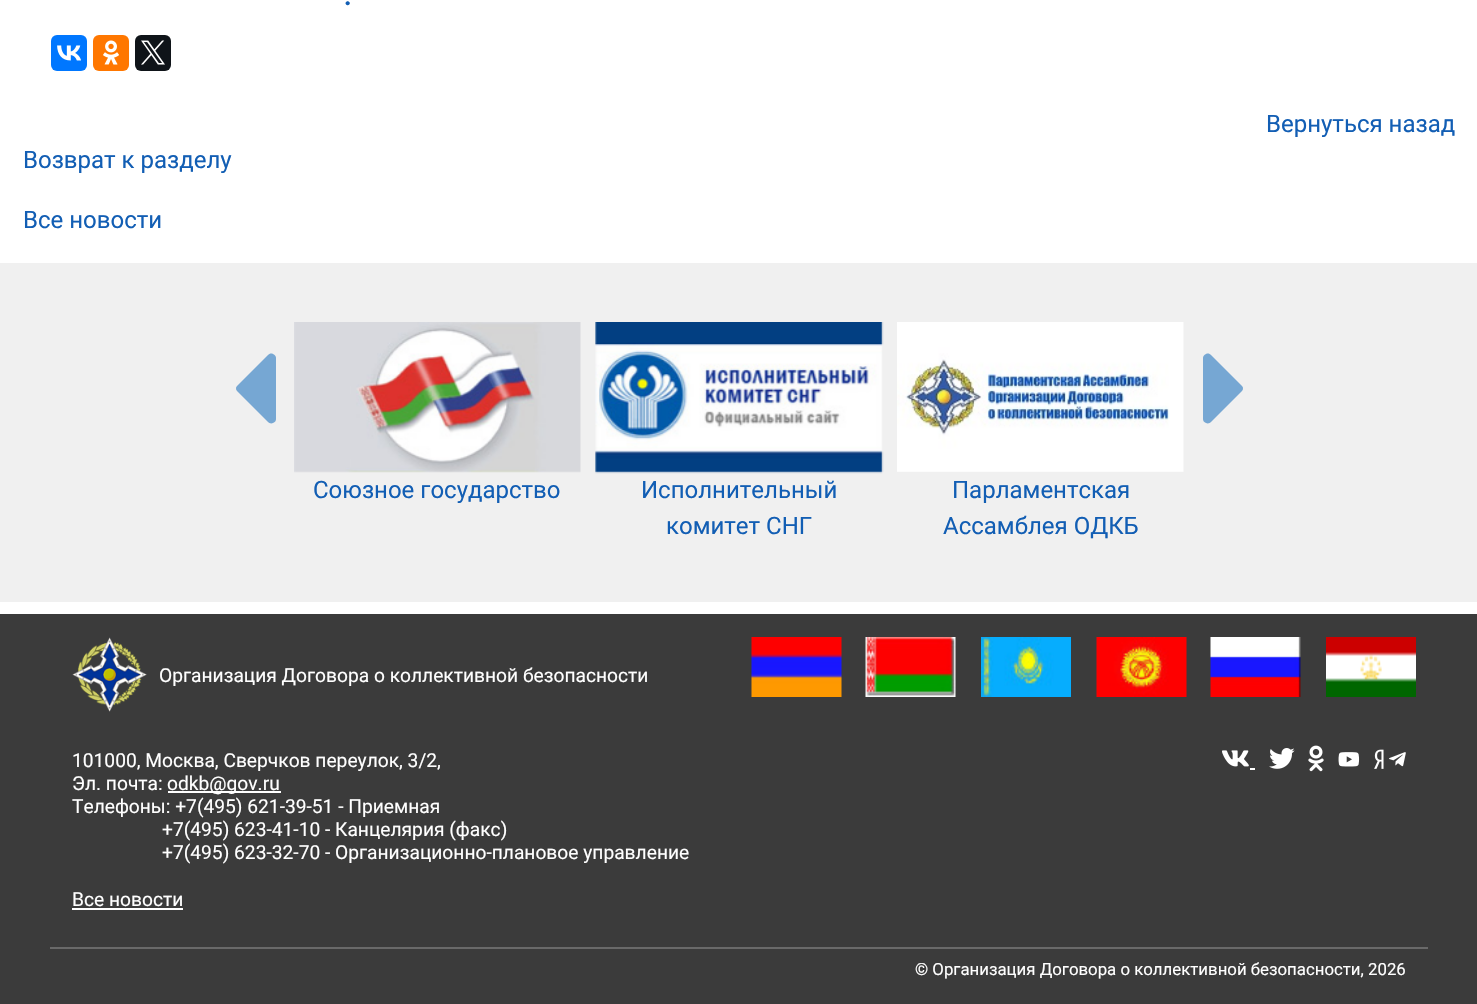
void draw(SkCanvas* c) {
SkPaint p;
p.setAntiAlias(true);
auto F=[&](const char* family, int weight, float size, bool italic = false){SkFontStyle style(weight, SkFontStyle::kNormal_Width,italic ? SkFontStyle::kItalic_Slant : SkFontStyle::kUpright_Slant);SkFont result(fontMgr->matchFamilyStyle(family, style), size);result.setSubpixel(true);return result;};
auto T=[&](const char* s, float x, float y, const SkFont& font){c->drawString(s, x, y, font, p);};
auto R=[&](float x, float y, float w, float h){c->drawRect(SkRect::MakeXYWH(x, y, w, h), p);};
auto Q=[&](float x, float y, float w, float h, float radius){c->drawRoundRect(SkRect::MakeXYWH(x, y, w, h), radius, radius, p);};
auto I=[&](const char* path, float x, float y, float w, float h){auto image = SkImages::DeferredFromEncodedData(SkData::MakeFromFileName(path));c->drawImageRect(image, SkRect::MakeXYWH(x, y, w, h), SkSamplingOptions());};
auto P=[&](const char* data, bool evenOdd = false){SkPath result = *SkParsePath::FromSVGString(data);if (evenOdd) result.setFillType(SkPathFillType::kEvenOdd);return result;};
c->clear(0xffffffff);
auto f1 = F("Roboto",700,26);
p.setColor(0xff125eb4);
T(".",344,5,f1);
p.setColor(0xff0077ff);
Q(51,35,36,36,6);
I("1.png",57,45,24,16);
p.setColor(0xffff7700);
Q(93,35,36,36,6);
I("2.png",103,40,16,25);
p.setColor(0xff0f1419);
Q(135,35,36,36,6);
I("3.png",141,40,24,25);
auto f2 = F("Roboto",400,24);
p.setColor(0xff125eb4);
T("Вернуться назад",1266,132,f2);
T("Возврат к разделу",23,168,f2);
T("Все новости",23,228,f2);
p.setColor(0xfff0f0f0);
R(0,263,1477,339);
p.setColor(0xff76a7d3);
c->drawPath(P("M276 358v61c0 2-1 3-3 4c-2 1-4 0-5-1l-30-30c-1-1-2-2-2-4c0-1 1-2 2-3l30-30c1-1 3-2 5-1c2 1 3 2 3 4z"),p);
c->drawPath(P("M1203 419v-61c0-2 1-3 3-4c2-1 4 0 5 1l30 30c1 1 2 2 2 3c0 2-1 3-2 4l-30 30c-1 1-3 2-5 1c-2-1-3-2-3-4z"),p);
I("4.png",294,322,287,151);
p.setColor(0xff125eb4);
T("Союзное государство",313,498,f2);
I("5.png",595,322,289,152);
T("Исполнительный",641,498,f2);
T("комитет СНГ",666,534,f2);
I("6.png",897,322,287,150);
T("Парламентская",952,498,f2);
T("Ассамблея ОДКБ",943,534,f2);
p.setColor(0xff3b3b3b);
R(0,614,1477,390);
I("7.png",72,637,75,75);
auto f3 = F("Roboto",400,19.2);
p.setColor(0xffffffff);
T("Организация Договора о коллективной безопасности",159,682,f3);
I("8.png",751,637,91,60);
I("9.png",865,637,91,60);
I("10.png",981,637,90,60);
I("11.png",1096,637,91,60);
I("12.png",1210,637,91,60);
I("13.png",1326,637,90,60);
T("101000, Москва, Сверчков переулок, 3/2,",72,767,f3);
T("Эл. почта:",72,790,f3);
R(168,791,113,2);
T("odkb@gov.ru",167,790,f3);
T("Телефоны: +7(495) 621-39-51 - Приемная",72,813,f3);
T("+7(495) 623-41-10 - Канцелярия (факс)",162,836,f3);
T("+7(495) 623-32-70 - Организационно-плановое управление",162,859,f3);
I("14.png",1222,750,27,17);
R(1250,768,5,2);
I("15.png",1269,748,26,21);
I("16.png",1308,745,16,27);
I("17.png",1338,752,22,15);
I("18.png",1374,749,10,20);
I("19.png",1389,752,17,15);
T("Все новости",72,906,f3);
R(72,908,111,2);
p.setColor(0xff696969);
R(50,947,1378,2);
auto f4 = F("Roboto",400,16.8);
p.setColor(0xffffffff);
T("© Организация Договора о коллективной безопасности, 2026",915,975,f4);
}
